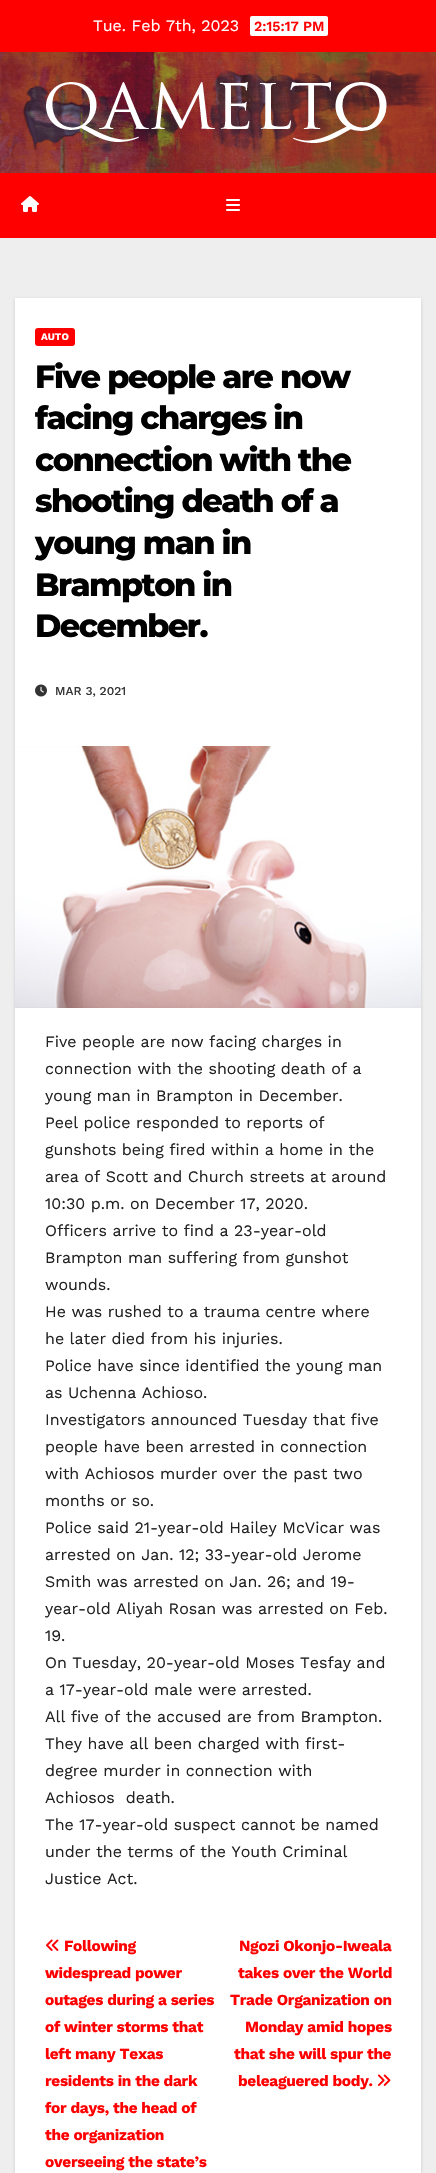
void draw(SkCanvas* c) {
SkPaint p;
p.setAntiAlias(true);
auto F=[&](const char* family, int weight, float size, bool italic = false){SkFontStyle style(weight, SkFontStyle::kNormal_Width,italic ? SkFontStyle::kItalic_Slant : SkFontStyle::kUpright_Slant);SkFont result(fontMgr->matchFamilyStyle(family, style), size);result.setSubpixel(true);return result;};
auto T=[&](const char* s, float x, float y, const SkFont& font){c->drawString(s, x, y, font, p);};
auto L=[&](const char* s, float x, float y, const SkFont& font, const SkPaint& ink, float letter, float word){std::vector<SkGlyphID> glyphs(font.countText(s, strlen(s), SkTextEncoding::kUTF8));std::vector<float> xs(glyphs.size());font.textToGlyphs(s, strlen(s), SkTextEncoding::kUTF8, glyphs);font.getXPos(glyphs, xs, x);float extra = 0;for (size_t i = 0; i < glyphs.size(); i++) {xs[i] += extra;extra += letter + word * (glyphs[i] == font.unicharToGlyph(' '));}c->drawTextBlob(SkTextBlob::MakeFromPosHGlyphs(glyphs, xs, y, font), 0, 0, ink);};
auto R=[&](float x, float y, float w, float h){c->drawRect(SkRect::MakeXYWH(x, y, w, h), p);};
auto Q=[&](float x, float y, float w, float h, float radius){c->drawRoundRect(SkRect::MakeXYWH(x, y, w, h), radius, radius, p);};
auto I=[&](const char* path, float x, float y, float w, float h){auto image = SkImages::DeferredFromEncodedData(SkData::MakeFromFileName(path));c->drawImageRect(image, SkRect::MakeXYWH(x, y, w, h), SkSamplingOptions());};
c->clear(0xffeeeeee);
p.setColor(0xffff0000);
R(0,0,436,52);
auto f1 = F("Work Sans",400,16);
p.setColor(0xffffffff);
T("Tue. Feb 7th, 2023",93,31,f1);
Q(250,16,78,20,2);
auto f2 = F("Work Sans",600,14);
p.setColor(0xffff0000);
T("2:15:17 PM",254,31,f2);
I("1.png",0,52,436,121);
I("2.png",46,82,341,61);
R(0,173,436,65);
I("3.png",21,196,18,16);
I("4.png",226,199,14,12);
p.setColor(0x26000000);
p.setMaskFilter(SkMaskFilter::MakeBlur(kNormal_SkBlurStyle, 1.5));
c->drawRect(SkRect::MakeXYWH(15,299,406,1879),p);
p.setMaskFilter(nullptr);
p.setColor(0xffffffff);
R(15,298,406,1875);
p.setColor(0xffff0000);
Q(35,328,40,18,3);
auto f3 = F("Work Sans",700,10);
p.setColor(0xffffffff);
T("AUTO",41,340,f3);
auto f4 = F("Montserrat",800,32);
p.setColor(0xff000000);
L("Five people are now",35,388,f4,p,-1.6,0);
L("facing charges in",35,429,f4,p,-1.6,0);
L("connection with the",35,471,f4,p,-1.6,0);
L("shooting death of a",35,512,f4,p,-1.6,0);
L("young man in",35,554,f4,p,-1.6,0);
L("Brampton in",35,596,f4,p,-1.6,0);
L("December.",35,637,f4,p,-1.6,0);
I("5.png",35,684,12,13);
auto f5 = F("Work Sans",500,12);
p.setColor(0xff333333);
T("MAR 3, 2021",55,695,f5);
I("6.png",15,746,406,262);
p.setColor(0xff222222);
T("Five people are now facing charges in",45,1047,f1);
T("connection with the shooting death of a",45,1074,f1);
T("young man in Brampton in December.",45,1101,f1);
T("Peel police responded to reports of",45,1128,f1);
T("gunshots being fired within a home in the",45,1155,f1);
T("area of Scott and Church streets at around",45,1182,f1);
T("10:30 p.m. on December 17, 2020.",45,1209,f1);
T("Officers arrive to find a 23-year-old",45,1236,f1);
T("Brampton man suffering from gunshot",45,1263,f1);
T("wounds.",45,1290,f1);
T("He was rushed to a trauma centre where",45,1317,f1);
T("he later died from his injuries.",45,1344,f1);
T("Police have since identified the young man",45,1371,f1);
T("as Uchenna Achioso.",45,1398,f1);
T("Investigators announced Tuesday that five",45,1425,f1);
T("people have been arrested in connection",45,1452,f1);
T("with Achiosos murder over the past two",45,1479,f1);
T("months or so.",45,1506,f1);
T("Police said 21-year-old Hailey McVicar was",45,1533,f1);
T("arrested on Jan. 12; 33-year-old Jerome",45,1560,f1);
T("Smith was arrested on Jan. 26; and 19-",45,1587,f1);
T("year-old Aliyah Rosan was arrested on Feb.",45,1614,f1);
T("19.",45,1641,f1);
T("On Tuesday, 20-year-old Moses Tesfay and",45,1668,f1);
T("a 17-year-old male were arrested.",45,1695,f1);
T("All five of the accused are from Brampton.",45,1722,f1);
T("They have all been charged with first-",45,1749,f1);
T("degree murder in connection with",45,1776,f1);
T("Achiosos  death.",45,1803,f1);
T("The 17-year-old suspect cannot be named",45,1830,f1);
T("under the terms of the Youth Criminal",45,1857,f1);
T("Justice Act.",45,1884,f1);
I("7.png",46,1939,13,12);
auto f6 = F("Work Sans",700,15.4);
p.setColor(0xffff0000);
L("Following",64,1951,f6,p,-.3,0);
L("widespread power",45,1978,f6,p,-.3,0);
L("outages during a series",45,2005,f6,p,-.3,0);
L("of winter storms that",45,2032,f6,p,-.3,0);
L("left many Texas",45,2059,f6,p,-.3,0);
L("residents in the dark",45,2086,f6,p,-.3,0);
L("for days, the head of",45,2113,f6,p,-.3,0);
L("the organization",45,2140,f6,p,-.3,0);
L("overseeing the state’s",45,2167,f6,p,-.3,0);
L("Ngozi Okonjo-Iweala",239,1951,f6,p,-.3,0);
L("takes over the World",238,1978,f6,p,-.3,0);
L("Trade Organization on",230,2005,f6,p,-.3,0);
L("Monday amid hopes",245,2032,f6,p,-.3,0);
L("that she will spur the",234,2059,f6,p,-.3,0);
L("beleaguered body.",238,2086,f6,p,-.3,0);
I("8.png",378,2074,13,12);
}
